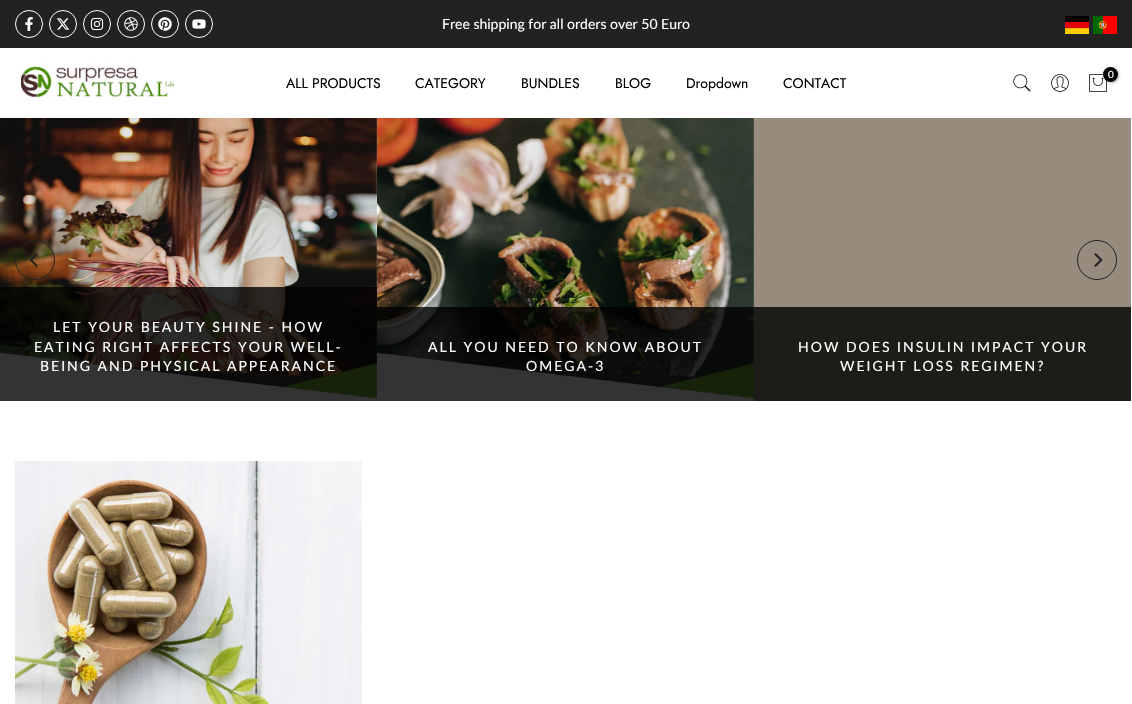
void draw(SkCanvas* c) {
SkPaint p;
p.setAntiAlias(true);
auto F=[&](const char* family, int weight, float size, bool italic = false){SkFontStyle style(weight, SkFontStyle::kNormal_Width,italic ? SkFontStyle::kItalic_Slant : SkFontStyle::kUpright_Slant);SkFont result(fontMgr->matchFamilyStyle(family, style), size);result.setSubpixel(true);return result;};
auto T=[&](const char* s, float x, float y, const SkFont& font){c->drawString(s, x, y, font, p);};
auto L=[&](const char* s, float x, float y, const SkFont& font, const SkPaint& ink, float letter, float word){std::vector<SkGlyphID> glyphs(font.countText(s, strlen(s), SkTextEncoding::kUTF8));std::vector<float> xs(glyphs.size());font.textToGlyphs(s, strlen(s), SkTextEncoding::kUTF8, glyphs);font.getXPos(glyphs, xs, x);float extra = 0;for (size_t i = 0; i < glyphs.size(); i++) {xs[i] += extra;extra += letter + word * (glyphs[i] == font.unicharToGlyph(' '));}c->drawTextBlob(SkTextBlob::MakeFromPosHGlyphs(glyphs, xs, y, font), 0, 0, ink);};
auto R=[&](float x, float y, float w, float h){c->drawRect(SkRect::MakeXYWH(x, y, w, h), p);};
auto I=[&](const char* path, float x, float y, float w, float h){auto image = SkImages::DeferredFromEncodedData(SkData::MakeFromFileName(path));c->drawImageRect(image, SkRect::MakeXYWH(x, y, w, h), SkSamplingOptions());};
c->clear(0xffffffff);
p.setColor(0xff222222);
R(0,0,1132,48);
p.setStroke(true);
p.setStrokeWidth(1);
p.setColor(0xffffffff);
c->drawCircle(29,24,13.5,p);
I("1.png",25,17,8,14);
c->drawCircle(63,24,13.5,p);
I("2.png",56,18,14,12);
c->drawCircle(97,24,13.5,p);
I("3.png",90,17,14,14);
c->drawCircle(131,24,13.5,p);
I("4.png",124,17,14,14);
c->drawCircle(165,24,13.5,p);
I("5.png",158,17,14,14);
c->drawCircle(199,24,13.5,p);
I("6.png",192,19,14,10);
auto f1 = F("Lato",400,14);
p.setStroke(false);
T("Free shipping for all orders over 50 Euro",442,29,f1);
I("7.png",1065,16,24,18);
I("8.png",1093,16,24,18);
I("9.png",21,62,153,39);
I("10.png",1013,74,18,18);
I("11.png",1051,74,18,18);
I("12.png",1089,74,18,18);
p.setColor(0x4d000000);
p.setMaskFilter(SkMaskFilter::MakeBlur(kNormal_SkBlurStyle, 1.5));
c->drawRoundRect(SkRect::MakeXYWH(1104,68,15,15),7.5,7.5,p);
p.setMaskFilter(nullptr);
p.setColor(0xff000000);
c->drawCircle(1110.5,74.5,7.5,p);
auto f2 = F("Lato",400,10);
p.setColor(0xffffffff);
T("0",1108,78,f2);
auto f3 = F("Jost",400,14);
p.setColor(0xff000000);
T("ALL PRODUCTS",286,88,f3);
T("CATEGORY",415,88,f3);
T("BUNDLES",521,88,f3);
T("BLOG",615,88,f3);
T("Dropdown",686,88,f3);
T("CONTACT",783,88,f3);
I("15.png",0,118,377,281);
p.setStroke(true);
p.setColor(0xff222222);
c->drawCircle(35,260,19.5,p);
I("13.png",29,253,9,14);
p.setStroke(false);
p.setColor(0xff968b7d);
R(754,118,377,189);
p.setStroke(true);
p.setColor(0xff222222);
c->drawCircle(1097,260,19.5,p);
I("14.png",1094,253,9,14);
p.setStroke(false);
p.setColor(0xcc000000);
R(0,287,377,114);
p.setColor(0xffffffff);
L("LET YOUR BEAUTY SHINE - HOW",53,332,f1,p,2,0);
L("EATING RIGHT AFFECTS YOUR WELL-",34,352,f1,p,2,0);
L("BEING AND PHYSICAL APPEARANCE",40,371,f1,p,2,0);
I("16.png",377,118,377,281);
p.setColor(0xcc000000);
R(377,307,377,94);
p.setColor(0xffffffff);
L("ALL YOU NEED TO KNOW ABOUT",428,352,f1,p,2,0);
L("OMEGA-3",526,371,f1,p,2,0);
p.setColor(0xff1e1c19);
R(754,307,377,94);
p.setColor(0xffffffff);
L("HOW DOES INSULIN IMPACT YOUR",798,352,f1,p,2,0);
L("WEIGHT LOSS REGIMEN?",840,371,f1,p,2,0);
I("17.png",15,461,347,243);
}
